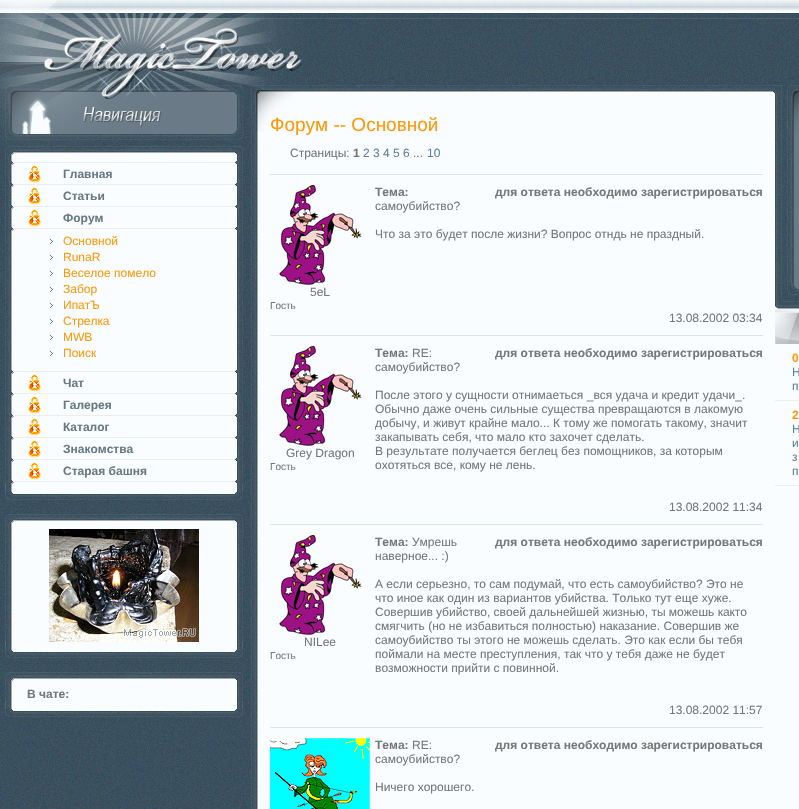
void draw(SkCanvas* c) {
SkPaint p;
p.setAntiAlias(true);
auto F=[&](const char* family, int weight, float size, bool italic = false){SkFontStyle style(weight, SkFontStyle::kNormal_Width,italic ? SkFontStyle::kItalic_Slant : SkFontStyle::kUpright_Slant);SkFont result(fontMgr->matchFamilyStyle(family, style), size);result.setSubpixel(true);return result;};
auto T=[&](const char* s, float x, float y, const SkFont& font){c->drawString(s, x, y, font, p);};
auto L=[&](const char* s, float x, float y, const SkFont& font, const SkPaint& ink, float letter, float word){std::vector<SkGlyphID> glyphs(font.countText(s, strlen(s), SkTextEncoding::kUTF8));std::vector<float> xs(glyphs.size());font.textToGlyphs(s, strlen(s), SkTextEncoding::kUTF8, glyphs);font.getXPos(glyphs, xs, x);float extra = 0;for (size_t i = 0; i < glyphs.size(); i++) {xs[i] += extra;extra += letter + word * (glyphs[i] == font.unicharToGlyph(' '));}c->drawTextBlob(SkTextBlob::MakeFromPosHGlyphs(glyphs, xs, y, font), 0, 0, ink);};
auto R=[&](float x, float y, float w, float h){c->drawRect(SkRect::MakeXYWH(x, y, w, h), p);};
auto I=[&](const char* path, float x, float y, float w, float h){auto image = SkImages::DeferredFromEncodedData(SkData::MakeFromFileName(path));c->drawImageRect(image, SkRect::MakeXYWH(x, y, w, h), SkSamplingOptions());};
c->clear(0xffffffff);
I("1.png",0,13,799,796);
I("2.png",0,0,799,13);
I("3.png",0,0,58,11);
I("4.png",0,13,304,72);
I("5.png",304,18,495,1);
I("6.png",0,85,5,71);
I("7.png",243,85,8,34);
I("8.png",5,85,238,61);
I("9.png",5,146,5,15);
I("10.png",28,146,96,15);
I("11.png",10,146,18,15);
I("12.png",124,146,107,15);
I("13.png",231,146,7,15);
I("14.png",238,146,5,15);
I("15.png",5,161,5,323);
p.setColor(0xfff9fdff);
R(12,161,225,323);
I("16.png",10,161,18,4);
p.setColor(0xffededed);
R(28,162,203,1);
I("17.png",231,161,7,4);
I("18.png",10,165,2,18);
I("19.png",28,165,13,18);
auto f1 = F("Liberation Sans",700,12);
p.setColor(0xff687984);
T("Главная",63,178,f1);
I("20.png",237,165,1,18);
I("16.png",10,183,18,4);
p.setColor(0xffededed);
R(28,184,203,1);
I("17.png",231,183,7,4);
I("18.png",10,187,2,18);
I("19.png",28,187,13,18);
p.setColor(0xff687984);
T("Статьи",63,200,f1);
I("20.png",237,187,1,18);
I("16.png",10,205,18,4);
p.setColor(0xffededed);
R(28,206,203,1);
I("17.png",231,205,7,4);
I("18.png",10,209,2,18);
I("19.png",28,209,13,18);
p.setColor(0xff687984);
T("Форум",63,222,f1);
I("20.png",237,209,1,18);
I("16.png",10,227,18,4);
p.setColor(0xffededed);
R(28,228,203,1);
I("17.png",231,227,7,4);
I("21.png",10,231,2,139);
I("22.png",50,239,3,5);
auto f2 = F("Liberation Sans",400,12);
p.setColor(0xffff9908);
T("Основной",63,245,f2);
I("22.png",50,255,3,5);
T("RunaR",63,261,f2);
I("22.png",50,271,3,5);
T("Веселое помело",63,277,f2);
I("22.png",50,287,3,5);
T("Забор",63,293,f2);
I("22.png",50,303,3,5);
T("ИпатЪ",63,309,f2);
I("22.png",50,319,3,5);
T("Стрелка",63,325,f2);
I("22.png",50,335,3,5);
T("MWB",63,341,f2);
I("22.png",50,351,3,5);
T("Поиск",63,357,f2);
I("23.png",237,231,1,139);
I("16.png",10,370,18,4);
p.setColor(0xffededed);
R(28,371,203,1);
I("17.png",231,370,7,4);
I("18.png",10,374,2,18);
I("19.png",28,374,13,18);
p.setColor(0xff687984);
T("Чат",63,387,f1);
I("20.png",237,374,1,18);
I("16.png",10,392,18,4);
p.setColor(0xffededed);
R(28,393,203,1);
I("17.png",231,392,7,4);
I("18.png",10,396,2,18);
I("19.png",28,396,13,18);
p.setColor(0xff687984);
T("Галерея",63,409,f1);
I("20.png",237,396,1,18);
I("16.png",10,414,18,4);
p.setColor(0xffededed);
R(28,415,203,1);
I("17.png",231,414,7,4);
I("18.png",10,418,2,18);
I("19.png",28,418,13,18);
p.setColor(0xff687984);
T("Каталог",63,431,f1);
I("20.png",237,418,1,18);
I("16.png",10,436,18,4);
p.setColor(0xffededed);
R(28,437,203,1);
I("17.png",231,436,7,4);
I("18.png",10,440,2,18);
I("19.png",28,440,13,18);
p.setColor(0xff687984);
T("Знакомства",63,453,f1);
I("20.png",237,440,1,18);
I("16.png",10,458,18,4);
p.setColor(0xffededed);
R(28,459,203,1);
I("17.png",231,458,7,4);
I("18.png",10,462,2,18);
I("19.png",28,462,13,18);
p.setColor(0xff687984);
T("Старая башня",63,475,f1);
I("20.png",237,462,1,18);
I("16.png",10,480,18,4);
p.setColor(0xffededed);
R(28,481,203,1);
I("17.png",231,480,7,4);
I("24.png",238,161,5,323);
I("25.png",5,484,5,16);
I("26.png",28,484,96,16);
I("27.png",10,484,18,16);
I("28.png",124,484,107,16);
I("29.png",231,484,7,16);
I("30.png",238,484,5,16);
I("9.png",5,514,5,15);
I("10.png",28,514,96,15);
I("11.png",10,514,18,15);
I("12.png",124,514,107,15);
I("13.png",231,514,7,15);
I("14.png",238,514,5,15);
I("31.png",5,529,5,113);
p.setColor(0xfff9fdff);
R(12,529,225,113);
I("32.png",10,529,2,113);
I("33.png",49,529,150,113);
I("34.png",237,529,1,113);
I("35.png",238,529,5,113);
I("25.png",5,642,5,16);
I("26.png",28,642,96,16);
I("27.png",10,642,18,16);
I("28.png",124,642,107,16);
I("29.png",231,642,7,16);
I("30.png",238,642,5,16);
I("9.png",5,672,5,15);
I("10.png",28,672,96,15);
I("11.png",10,672,18,15);
I("12.png",124,672,107,15);
I("13.png",231,672,7,15);
I("14.png",238,672,5,15);
I("36.png",5,687,5,14);
R(12,687,225,14);
I("37.png",10,687,2,14);
p.setColor(0xff777777);
T("В чате:",27,698,f1);
I("38.png",237,687,1,14);
I("39.png",238,687,5,14);
I("25.png",5,701,5,16);
I("26.png",28,701,96,16);
I("27.png",10,701,18,16);
I("28.png",124,701,107,16);
I("29.png",231,701,7,16);
I("30.png",238,701,5,16);
p.setColor(0xfff9fdff);
R(259,93,516,716);
I("40.png",251,85,9,9);
I("41.png",363,85,410,8);
I("42.png",260,85,103,9);
I("43.png",773,85,2,8);
I("44.png",251,160,8,649);
I("45.png",251,94,9,66);
I("46.png",260,94,33,38);
R(270,114,1,2);
auto f3 = F("Liberation Sans",400,19);
p.setColor(0xffff9908);
T("Форум -- Основной",270,131,f3);
p.setColor(0xff777777);
T("Страницы:",290,157,f2);
T("1",353,157,f1);
p.setColor(0xff5f819d);
T("2 3 4 5 6",363,157,f2);
p.setColor(0xff777777);
T("...",413,157,f2);
p.setColor(0xff5f819d);
T("10",427,157,f2);
p.setColor(0xffdde4e7);
R(270,174,493,1);
p.setColor(0xff777777);
T("Тема:",375,196,f1);
T("самоубийство?",375,210,f2);
T("для ответа необходимо зарегистрироваться",495,196,f1);
T("Что за это будет после жизни? Вопрос отндь не праздный.",375,238,f2);
I("47.png",279,185,83,100);
T("5eL",310,296,f2);
auto f4 = F("Liberation Sans",400,10);
T("Гость",270,309,f4);
T("13.08.2002 03:34",669,322,f2);
p.setColor(0xffdde4e7);
R(270,335,493,1);
I("47.png",279,346,83,100);
p.setColor(0xff777777);
T("Grey Dragon",286,457,f2);
T("Гость",270,470,f4);
T("Тема:",375,357,f1);
T("RE:",412,357,f2);
T("самоубийство?",375,371,f2);
T("для ответа необходимо зарегистрироваться",495,357,f1);
T("После этого у сущности отнимаеться _вся удача и кредит удачи_.",375,399,f2);
T("Обычно даже очень сильные существа превращаются в лакомую",375,413,f2);
T("добычу, и живут крайне мало... К тому же помогать такому, значит",375,427,f2);
T("закапывать себя, что мало кто захочет сделать.",375,441,f2);
T("В результате получается беглец без помощников, за которым",375,455,f2);
T("охотяться все, кому не лень.",375,469,f2);
T("13.08.2002 11:34",669,511,f2);
p.setColor(0xffdde4e7);
R(270,524,493,1);
I("47.png",279,535,83,100);
p.setColor(0xff777777);
T("NILee",304,646,f2);
T("Гость",270,659,f4);
T("Тема:",375,546,f1);
T("Умрешь",412,546,f2);
T("наверное... :)",375,560,f2);
T("для ответа необходимо зарегистрироваться",495,546,f1);
T("А если серьезно, то сам подумай, что есть самоубийство? Это не",375,588,f2);
T("что иное как один из вариантов убийства. Только тут еще хуже.",375,602,f2);
T("Совершив убийство, своей дальнейшей жизнью, ты можешь както",375,616,f2);
T("смягчить (но не избавиться полностью) наказание. Совершив же",375,630,f2);
T("самоубийство ты этого не можешь сделать. Это как если бы тебя",375,644,f2);
T("поймали на месте преступления, так что у тебя даже не будет",375,658,f2);
T("возможности прийти с повинной.",375,672,f2);
T("13.08.2002 11:57",669,714,f2);
p.setColor(0xffdde4e7);
R(270,727,493,1);
I("48.png",270,738,100,71);
p.setColor(0xff777777);
T("Тема:",375,749,f1);
T("RE:",412,749,f2);
T("самоубийство?",375,763,f2);
T("для ответа необходимо зарегистрироваться",495,749,f1);
T("Ничего хорошего.",375,791,f2);
p.setColor(0xfff9fdff);
R(775,344,24,465);
I("49.png",775,85,24,9);
I("50.png",775,146,24,135);
I("51.png",775,94,24,52);
I("52.png",775,281,24,28);
I("53.png",775,309,24,35);
p.setColor(0xffff9908);
T("0",792,362,f1);
p.setColor(0xff5f819d);
L("Н",792,376,f2,p,0,11);
T("п",792,390,f2);
p.setColor(0xffeaeef0);
R(775,400,24,1);
p.setColor(0xffff9908);
T("2",792,419,f1);
p.setColor(0xff5f819d);
L("Н",792,433,f2,p,0,2);
L("и",792,447,f2,p,0,40);
L("з",792,461,f2,p,0,28);
T("п",792,475,f2);
p.setColor(0xffeaeef0);
R(775,485,24,1);
}
